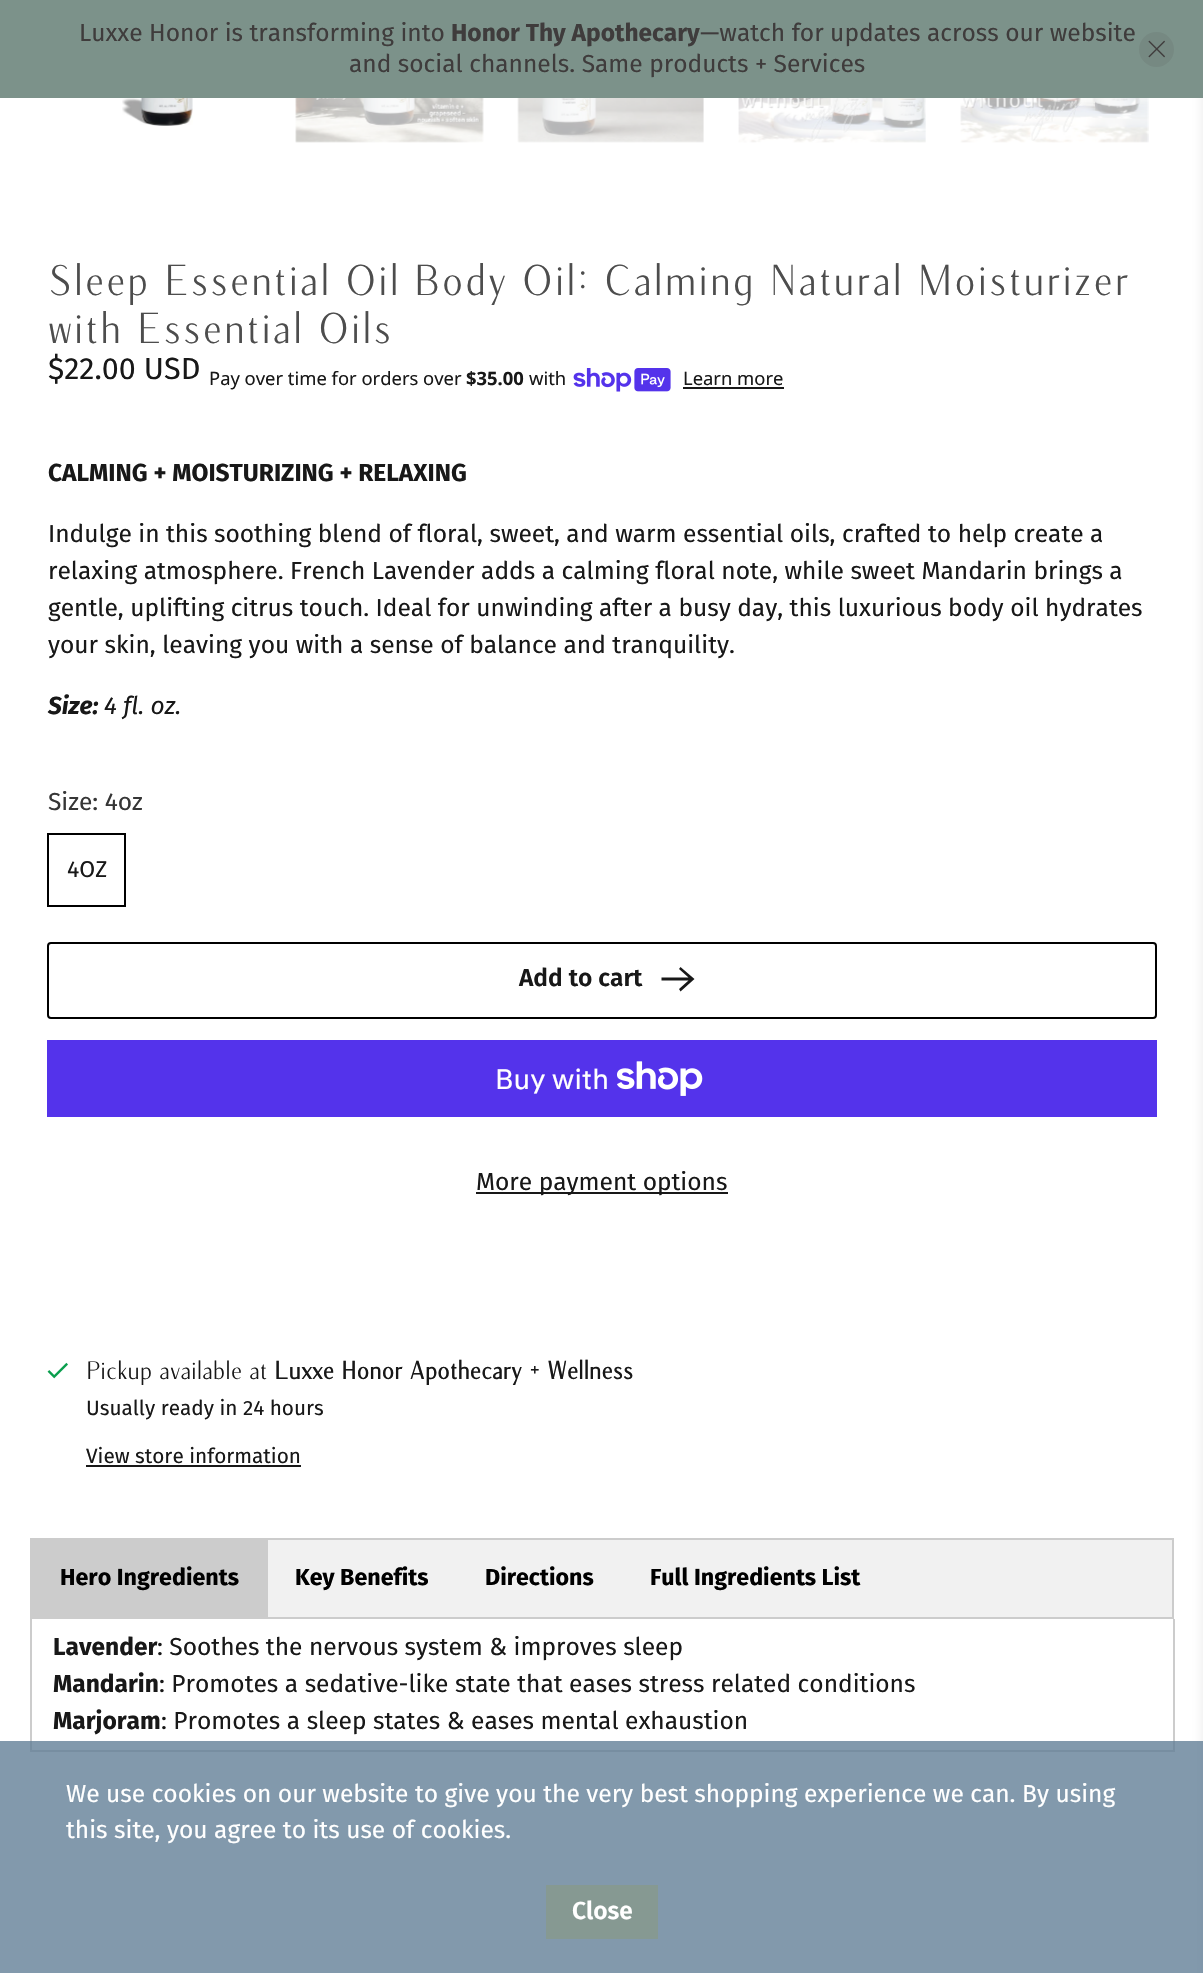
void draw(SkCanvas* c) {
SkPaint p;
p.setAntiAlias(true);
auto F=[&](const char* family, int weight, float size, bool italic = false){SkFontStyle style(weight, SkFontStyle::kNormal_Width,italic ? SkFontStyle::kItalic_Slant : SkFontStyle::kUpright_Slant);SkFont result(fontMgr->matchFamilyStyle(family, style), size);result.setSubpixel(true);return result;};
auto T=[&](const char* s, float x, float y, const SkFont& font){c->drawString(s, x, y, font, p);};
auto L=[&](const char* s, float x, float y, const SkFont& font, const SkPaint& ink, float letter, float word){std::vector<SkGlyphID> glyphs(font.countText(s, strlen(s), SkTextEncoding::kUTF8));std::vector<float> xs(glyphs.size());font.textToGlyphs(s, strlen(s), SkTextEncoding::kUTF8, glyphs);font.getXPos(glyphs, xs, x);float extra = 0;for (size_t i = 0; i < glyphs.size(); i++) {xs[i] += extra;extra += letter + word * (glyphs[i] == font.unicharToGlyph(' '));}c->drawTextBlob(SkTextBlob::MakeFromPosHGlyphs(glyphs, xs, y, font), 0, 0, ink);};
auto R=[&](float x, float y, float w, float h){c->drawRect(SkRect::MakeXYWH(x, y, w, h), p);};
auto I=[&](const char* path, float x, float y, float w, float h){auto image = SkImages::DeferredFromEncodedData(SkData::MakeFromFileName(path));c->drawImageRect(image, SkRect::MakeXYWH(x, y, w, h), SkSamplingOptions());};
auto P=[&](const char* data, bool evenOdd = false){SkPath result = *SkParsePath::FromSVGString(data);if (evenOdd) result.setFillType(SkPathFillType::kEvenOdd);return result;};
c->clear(0xffffffff);
p.setColor(0x1a0a0a0a);
p.setMaskFilter(SkMaskFilter::MakeBlur(kNormal_SkBlurStyle, 7));
c->drawRect(SkRect::MakeXYWH(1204,14,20,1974),p);
p.setMaskFilter(nullptr);
p.setColor(0xff7c928a);
R(0,0,1203,98);
auto f1 = F("Fira Sans",400,24.5);
p.setColor(0xff3f3c3c);
T("Luxxe Honor is transforming into",79,41,f1);
auto f2 = F("Fira Sans",700,24.5);
T("Honor Thy Apothecary",451,41,f2);
T("—watch for updates across our website",700,41,f1);
T("and social channels. Same products + Services",349,72,f1);
p.setColor(0xff768982);
c->drawCircle(1156.5,49.5,17.5,p);
I("1.png",1148,40,17,18);
I("2.png",122,98,71,28);
I("3.png",295,98,189,45);
I("4.png",517,98,187,45);
I("5.png",738,98,188,45);
I("6.png",960,98,189,45);
auto f3 = F("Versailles",400,42);
p.setColor(0xff4d4d4d);
L("Sleep Essential Oil Body Oil: Calming Natural Moisturizer",48,295,f3,p,1.75,0);
L("with Essential Oils",48,343,f3,p,1.75,0);
auto f4 = F("Fira Sans",400,30.5);
p.setColor(0xff181818);
T("$22.00 USD",48,379,f4);
auto f5 = F("Noto Sans",400,18.4);
T("Pay over time for orders over",209,385,f5);
auto f6 = F("Noto Sans",700,18.4);
T("$35.00",466,385,f6);
T("with",529,385,f5);
I("7.png",573,368,98,24);
T("Learn more",683,385,f5);
R(683,387,101,2);
T("CALMING + MOISTURIZING + RELAXING",48,481,f2);
T("Indulge in this soothing blend of floral, sweet, and warm essential oils, crafted to help create a",48,542,f1);
T("relaxing atmosphere. French Lavender adds a calming floral note, while sweet Mandarin brings a",48,579,f1);
T("gentle, uplifting citrus touch. Ideal for unwinding after a busy day, this luxurious body oil hydrates",48,616,f1);
T("your skin, leaving you with a sense of balance and tranquility.",48,653,f1);
auto f7 = F("Fira Sans",700,24.5,true);
T("Size:",48,714,f7);
auto f8 = F("Fira Sans",400,24.5,true);
T("4 fl. oz.",104,714,f8);
p.setColor(0xff363636);
T("Size: 4oz",48,810,f1);
p.setStroke(true);
p.setStrokeWidth(2);
p.setColor(0xff000000);
c->drawRect(SkRect::MakeXYWH(48,834,77,72),p);
auto f9 = F("Fira Sans",400,23);
p.setStroke(false);
p.setColor(0xff181818);
T("4OZ",67,877,f9);
p.setStroke(true);
p.setColor(0xff000000);
c->drawRoundRect(SkRect::MakeXYWH(48,943,1108,75),3,3,p);
auto f10 = F("Fira Sans",600,24.5);
p.setStroke(false);
p.setColor(0xff181818);
T("Add to cart",519,986,f10);
c->drawPath(P("M680.5 967l-1.5 2l9.5 8.5h-27v3h27l-9.5 8.5l1.5 2.5l14-12.5z"),p);
p.setColor(0xff5433eb);
R(47,1040,1110,77);
auto f11 = F("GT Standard",400,28);
p.setColor(0xffffffff);
T("Buy with",495,1089,f11);
I("8.png",617,1061,86,35);
p.setColor(0xff181818);
R(476,1192,252,2);
T("More payment options",476,1190,f1);
I("9.png",47,1362,21,17);
auto f12 = F("Versailles",400,24.5);
T("Pickup available at",86,1379,f12);
auto f13 = F("Versailles",700,24.5);
T("Luxxe Honor Apothecary + Wellness",274,1379,f13);
auto f14 = F("Fira Sans",400,20.75);
T("Usually ready in 24 hours",86,1415,f14);
T("View store information",86,1463,f14);
R(86,1465,215,2);
p.setColor(0xfff1f1f1);
R(268,1540,904,77);
p.setStroke(true);
p.setColor(0xffcccccc);
c->drawRect(SkRect::MakeXYWH(31,1539,1142,79),p);
p.setStroke(false);
R(32,1540,236,77);
auto f15 = F("Fira Sans",700,23.25);
p.setColor(0xff000000);
T("Hero Ingredients",60,1585,f15);
T("Key Benefits",295,1585,f15);
T("Directions",485,1585,f15);
T("Full Ingredients List",650,1585,f15);
p.setColor(0xffcccccc);
R(1173,1619,2,133);
R(30,1750,1144,2);
R(30,1619,2,133);
p.setColor(0xff181818);
T("Lavender",53,1655,f2);
T(": Soothes the nervous system & improves sleep",157,1655,f1);
T("Mandarin",53,1692,f2);
T(": Promotes a sedative-like state that eases stress related conditions",159,1692,f1);
T("Marjoram",53,1729,f2);
T(": Promotes a sleep states & eases mental exhaustion",161,1729,f1);
p.setColor(0xc45d7a93);
R(0,1741,1203,232);
p.setColor(0xffffffff);
T("We use cookies on our website to give you the very best shopping experience we can. By using",66,1802,f1);
T("this site, you agree to its use of cookies.",66,1838,f1);
p.setColor(0xff869992);
R(546,1885,112,54);
p.setColor(0xffffffff);
T("Close",572,1919,f10);
}
